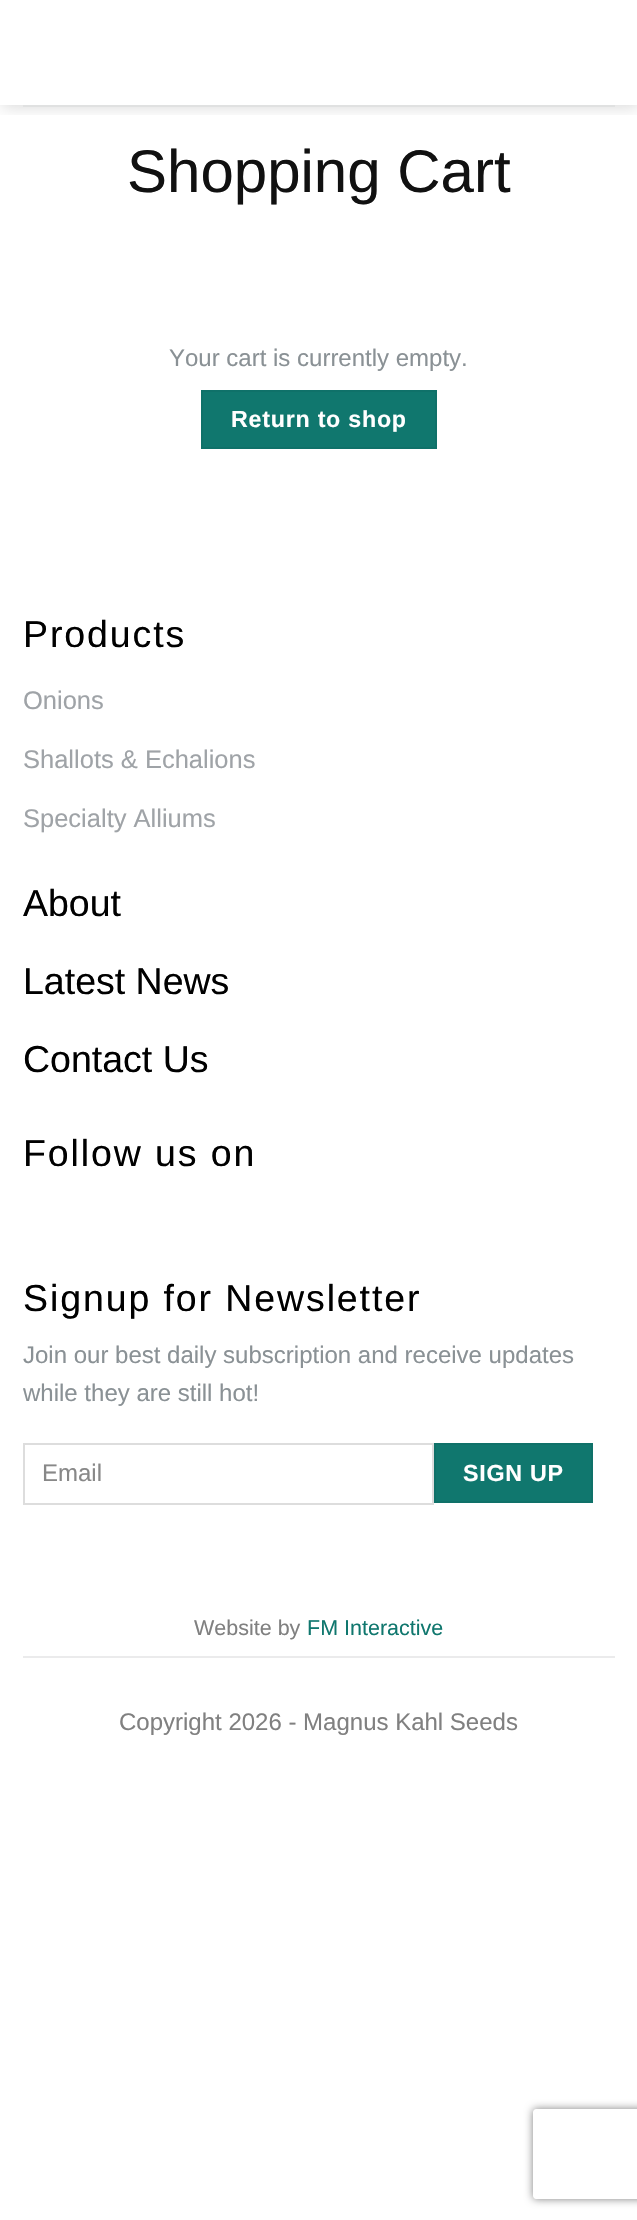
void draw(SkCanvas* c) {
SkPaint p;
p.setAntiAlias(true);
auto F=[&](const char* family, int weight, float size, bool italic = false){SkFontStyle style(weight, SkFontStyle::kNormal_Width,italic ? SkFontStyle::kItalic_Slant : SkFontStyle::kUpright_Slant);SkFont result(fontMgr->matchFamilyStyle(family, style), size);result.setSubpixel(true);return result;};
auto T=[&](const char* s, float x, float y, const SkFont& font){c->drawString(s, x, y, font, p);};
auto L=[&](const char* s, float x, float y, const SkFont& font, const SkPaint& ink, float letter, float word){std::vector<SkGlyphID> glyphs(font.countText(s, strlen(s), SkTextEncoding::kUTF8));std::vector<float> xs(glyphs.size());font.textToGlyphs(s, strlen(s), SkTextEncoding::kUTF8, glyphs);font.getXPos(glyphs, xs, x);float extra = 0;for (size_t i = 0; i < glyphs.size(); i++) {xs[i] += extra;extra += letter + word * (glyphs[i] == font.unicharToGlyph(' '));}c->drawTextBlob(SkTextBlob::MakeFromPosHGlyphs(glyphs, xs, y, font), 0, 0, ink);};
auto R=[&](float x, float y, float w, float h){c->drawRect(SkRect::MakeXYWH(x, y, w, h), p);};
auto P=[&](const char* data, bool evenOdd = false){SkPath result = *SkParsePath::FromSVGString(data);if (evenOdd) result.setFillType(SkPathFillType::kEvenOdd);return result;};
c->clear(0xffffffff);
c->save();
c->clipRect(SkRect::MakeXYWH(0,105,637,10));
p.setColor(0x26000000);
p.setMaskFilter(SkMaskFilter::MakeBlur(kNormal_SkBlurStyle, 7.5));
c->drawRect(SkRect::MakeXYWH(2,2,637,105),p);
p.setMaskFilter(nullptr);
c->restore();
p.setColor(0xffe0e1e1);
R(23,105,592,2);
auto f1 = F("Liberation Sans",400,60);
p.setColor(0xff111111);
T("Shopping Cart",127,192,f1);
auto f2 = F("Liberation Sans",400,24);
p.setColor(0xff8a9195);
T("Your cart is currently empty.",169,366,f2);
p.setColor(0xff10776e);
c->drawRect(SkRect::MakeXYWH(202,391,234,57),p);
p.setStroke(true);
p.setStrokeWidth(2);
p.setColor(0xff0f7169);
c->drawRect(SkRect::MakeXYWH(202,391,234,57),p);
auto f3 = F("Liberation Sans",700,23.25);
p.setStroke(false);
p.setColor(0xffffffff);
L("Return to shop",231,427,f3,p,.75,0);
auto f4 = F("Liberation Sans",400,37.5);
p.setColor(0xff000000);
L("Products",23,647,f4,p,1.9,0);
auto f5 = F("Liberation Sans",400,25.5);
p.setColor(0xff9fa3a7);
T("Onions",23,709,f5);
T("Shallots & Echalions",23,768,f5);
T("Specialty Alliums",23,827,f5);
p.setColor(0xff000000);
T("About",23,916,f4);
T("Latest News",23,994,f4);
T("Contact Us",23,1072,f4);
L("Follow us on",23,1166,f4,p,1.9,0);
L("Signup for Newsletter",23,1311,f4,p,1.9,0);
p.setColor(0xff8a9195);
T("Join our best daily subscription and receive updates",23,1363,f2);
T("while they are still hot!",23,1401,f2);
p.setStroke(true);
p.setColor(0xffdddddd);
c->drawRect(SkRect::MakeXYWH(24,1444,409,60),p);
p.setStroke(false);
p.setColor(0xff888888);
T("Email",42,1481,f2);
p.setColor(0xff10776e);
c->drawRect(SkRect::MakeXYWH(435,1444,157,58),p);
p.setStroke(true);
p.setColor(0xff0f7169);
c->drawRect(SkRect::MakeXYWH(435,1444,157,58),p);
p.setStroke(false);
p.setColor(0xffffffff);
L("SIGN UP",463,1481,f3,p,.75,0);
auto f6 = F("Liberation Sans",400,21.5);
p.setColor(0xff808080);
T("Website by",194,1635,f6);
p.setColor(0xff10776e);
T("FM Interactive",307,1635,f6);
p.setColor(0xffebebec);
R(23,1656,592,2);
p.setColor(0xff808080);
T("Copyright 2026 - Magnus Kahl Seeds",119,1730,f2);
c->save();
c->clipPath(P("M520 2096h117v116h-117zm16 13h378c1.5 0 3 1.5 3 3v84c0 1.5-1.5 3-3 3h-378c-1.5 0-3-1.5-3-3v-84c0-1.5 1.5-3 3-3z",true),true);
p.setMaskFilter(SkMaskFilter::MakeBlur(kNormal_SkBlurStyle, 4));
c->drawRoundRect(SkRect::MakeXYWH(533,2109,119,90),3,3,p);
p.setMaskFilter(nullptr);
c->restore();
}
